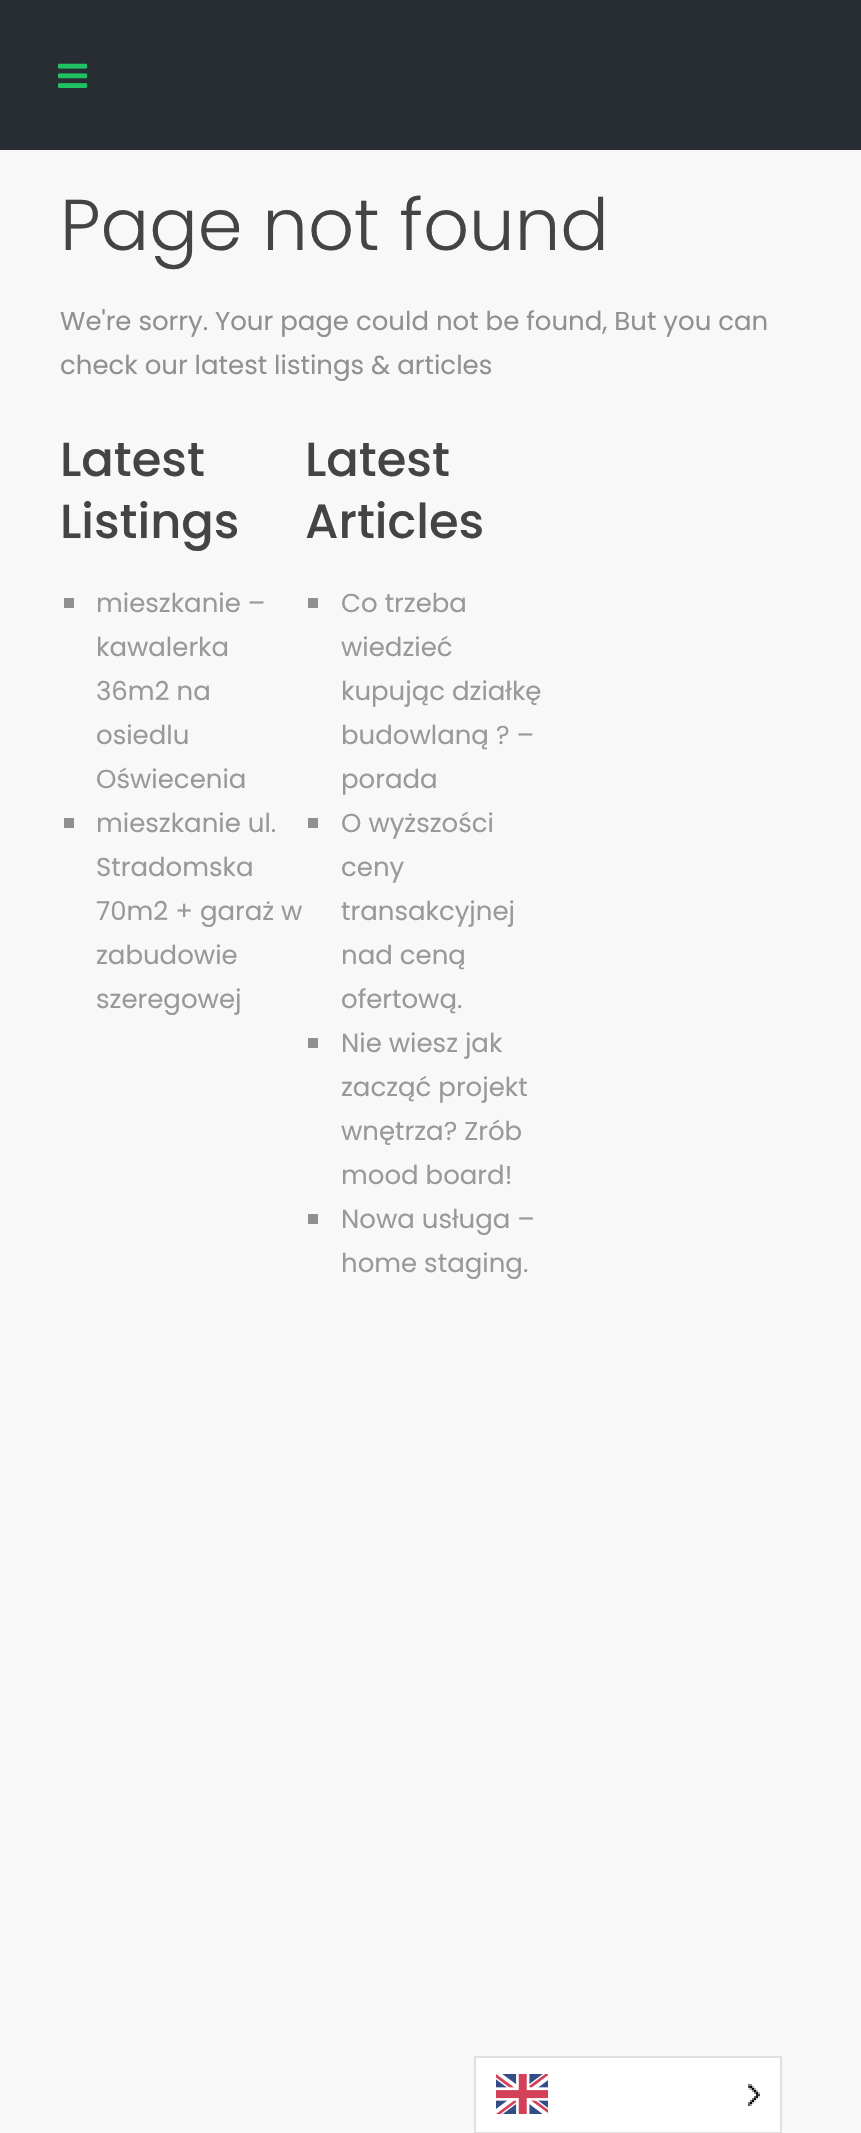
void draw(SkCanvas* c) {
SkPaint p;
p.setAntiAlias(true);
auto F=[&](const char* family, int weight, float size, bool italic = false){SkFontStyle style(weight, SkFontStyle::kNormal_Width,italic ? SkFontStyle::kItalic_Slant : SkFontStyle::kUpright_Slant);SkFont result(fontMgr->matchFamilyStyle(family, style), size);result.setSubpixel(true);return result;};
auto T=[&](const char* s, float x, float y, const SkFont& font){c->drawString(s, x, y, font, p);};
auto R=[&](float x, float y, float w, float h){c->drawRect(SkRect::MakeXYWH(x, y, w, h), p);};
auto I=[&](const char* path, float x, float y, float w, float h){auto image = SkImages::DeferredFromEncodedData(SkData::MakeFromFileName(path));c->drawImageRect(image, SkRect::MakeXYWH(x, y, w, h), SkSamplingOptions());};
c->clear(0xfff8f8f8);
p.setColor(0xff282d33);
R(0,0,861,150);
I("1.png",58,63,30,25);
auto f1 = F("Poppins",300,72);
p.setColor(0xff444444);
T("Page not found",60,250,f1);
auto f2 = F("Poppins",400,26);
p.setColor(0xff909090);
T("We're sorry. Your page could not be found, But you can",60,330,f2);
T("check our latest listings & articles",60,374,f2);
auto f3 = F("Poppins",500,48);
p.setColor(0xff444444);
T("Latest",60,476,f3);
T("Listings",60,538,f3);
p.setColor(0xff909090);
R(64,598,10,10);
p.setColor(0xff999999);
T("mieszkanie –",96,612,f2);
T("kawalerka",96,656,f2);
T("36m2 na",96,700,f2);
T("osiedlu",96,744,f2);
T("Oświecenia",96,788,f2);
p.setColor(0xff909090);
R(64,818,10,10);
p.setColor(0xff999999);
T("mieszkanie ul.",96,832,f2);
T("Stradomska",96,876,f2);
T("70m2 + garaż w",96,920,f2);
T("zabudowie",96,964,f2);
T("szeregowej",96,1008,f2);
p.setColor(0xff444444);
T("Latest",305,476,f3);
T("Articles",305,538,f3);
p.setColor(0xff909090);
R(308,598,10,10);
p.setColor(0xff999999);
T("Co trzeba",341,612,f2);
T("wiedzieć",341,656,f2);
T("kupując działkę",341,700,f2);
T("budowlaną ? –",341,744,f2);
T("porada",341,788,f2);
p.setColor(0xff909090);
R(308,818,10,10);
p.setColor(0xff999999);
T("O wyższości",341,832,f2);
T("ceny",341,876,f2);
T("transakcyjnej",341,920,f2);
T("nad ceną",341,964,f2);
T("ofertową.",341,1008,f2);
p.setColor(0xff909090);
R(308,1038,10,10);
p.setColor(0xff999999);
T("Nie wiesz jak",341,1052,f2);
T("zacząć projekt",341,1096,f2);
T("wnętrza? Zrób",341,1140,f2);
T("mood board!",341,1184,f2);
p.setColor(0xff909090);
R(308,1214,10,10);
p.setColor(0xff999999);
T("Nowa usługa –",341,1228,f2);
T("home staging.",341,1272,f2);
p.setColor(0xffffffff);
c->drawRect(SkRect::MakeXYWH(475,2057,306,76),p);
p.setStroke(true);
p.setStrokeWidth(2);
p.setColor(0xffe0e0e0);
c->drawRect(SkRect::MakeXYWH(475,2057,306,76),p);
I("2.png",496,2074,52,40);
I("3.png",748,2084,12,22);
}
